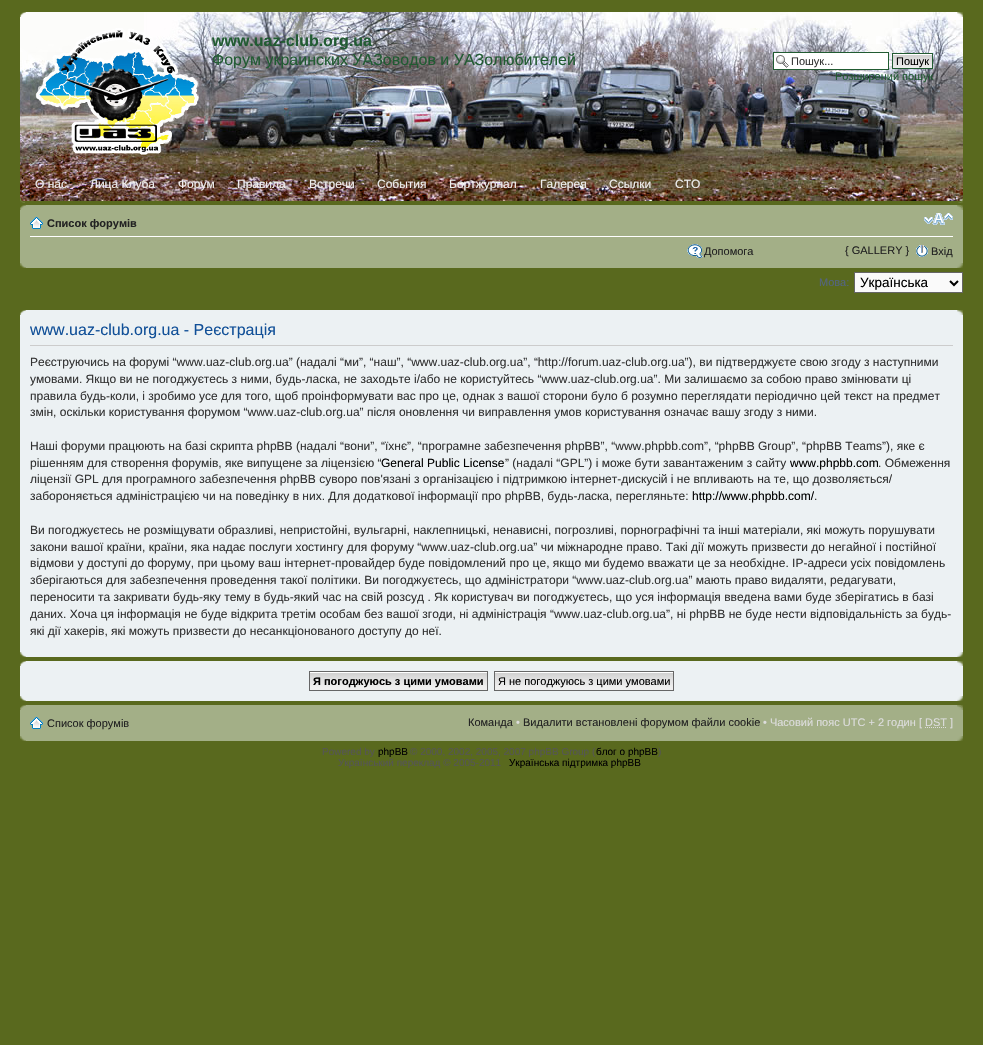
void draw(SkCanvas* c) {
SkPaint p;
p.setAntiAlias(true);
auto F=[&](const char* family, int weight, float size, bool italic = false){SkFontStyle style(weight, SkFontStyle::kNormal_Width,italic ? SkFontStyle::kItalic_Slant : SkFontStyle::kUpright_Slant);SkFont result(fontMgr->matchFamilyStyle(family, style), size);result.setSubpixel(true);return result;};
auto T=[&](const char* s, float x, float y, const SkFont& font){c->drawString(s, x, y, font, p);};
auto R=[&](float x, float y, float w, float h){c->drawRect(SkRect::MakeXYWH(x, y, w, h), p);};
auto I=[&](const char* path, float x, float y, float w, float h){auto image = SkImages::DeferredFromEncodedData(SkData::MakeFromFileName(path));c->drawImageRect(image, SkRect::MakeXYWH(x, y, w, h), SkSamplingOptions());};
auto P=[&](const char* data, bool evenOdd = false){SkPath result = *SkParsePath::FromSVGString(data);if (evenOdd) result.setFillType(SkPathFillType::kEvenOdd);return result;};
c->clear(0xff59691e);
I("1.png",20,12,943,189);
I("2.png",20,12,6,5);
I("3.png",957,12,6,5);
I("4.png",35,28,164,127);
auto f1 = F("Liberation Sans",700,16);
p.setColor(0xff215b32);
T("www.uaz-club.org.ua",212,46,f1);
auto f2 = F("Liberation Sans",400,16);
T("Форум украинских УАЗоводов и УАЗолюбителей",212,65,f2);
p.setColor(0xffffffff);
R(774,53,114,16);
I("5.png",776,55,13,13);
p.setStroke(true);
p.setStrokeWidth(1);
p.setColor(0xff215b32);
c->drawRect(SkRect::MakeXYWH(773.5,52.5,115,17),p);
auto f3 = F("Liberation Sans",400,11);
p.setStroke(false);
p.setColor(0xff333333);
T("Пошук...",791,65,f3);
I("6.png",893,54,39,14);
p.setStroke(true);
p.setColor(0xff215b32);
c->drawRect(SkRect::MakeXYWH(892.5,53.5,40,15),p);
p.setStroke(false);
p.setColor(0xff000000);
T("Пошук",896,65,f3);
p.setColor(0xff215b32);
T("Розширений пошук",835,80,f3);
auto f4 = F("Liberation Sans",400,12);
p.setColor(0xffeeeeee);
T("О нас",35,188,f4);
T("Лица Клуба",90,188,f4);
T("Форум",178,188,f4);
T("Правила",237,188,f4);
T("Встречи",309,188,f4);
T("События",377,188,f4);
T("Бортжурнал",449,188,f4);
T("Галерея",540,188,f4);
T("Ссылки",609,188,f4);
T("СТО",675,188,f4);
I("7.png",20,198,5,5);
I("8.png",958,198,5,5);
p.setColor(0xffa3af87);
R(20,205,943,63);
I("9.png",20,205,6,5);
I("10.png",957,205,6,5);
p.setColor(0xffffffff);
R(30,236,923,1);
I("11.png",30,217,13,12);
auto f5 = F("Liberation Sans",700,11);
p.setColor(0xff222222);
T("Список форумів",47,227,f5);
I("12.png",924,213,29,12);
I("13.png",687,244,16,14);
T("Допомога",704,255,f3);
T("{ GALLERY }",845,254,f3);
I("14.png",916,245,12,12);
T("Вхід",931,255,f3);
I("15.png",20,263,6,5);
I("16.png",957,263,6,5);
p.setColor(0xff536482);
T("Мова:",819,286,f3);
p.setColor(0xfffafafa);
c->drawRect(SkRect::MakeXYWH(854.5,272.5,108,20),p);
p.setStroke(true);
p.setColor(0xff666666);
c->drawRect(SkRect::MakeXYWH(854.5,272.5,108,20),p);
p.setStrokeWidth(2);
p.setColor(0xff000000);
c->drawPath(P("M950 281l4 4l4-4"),p);
auto f6 = F("Liberation Sans",400,13.5);
p.setStroke(false);
T("Українська",860,287,f6);
p.setColor(0xffecf1f3);
R(20,310,943,347);
I("17.png",20,310,6,5);
I("18.png",957,310,6,5);
p.setColor(0xffcccccc);
R(30,345,923,1);
p.setColor(0xff115098);
T("www.uaz-club.org.ua - Реєстрація",30,335,f2);
p.setColor(0xff333333);
T("Реєструючись на форумі “www.uaz-club.org.ua” (надалі “ми”, “наш”, “www.uaz-club.org.ua”, “http://forum.uaz-club.org.ua”), ви підтверджуєте свою згоду з наступними",30,366,f4);
T("умовами. Якщо ви не погоджуєтесь з ними, будь-ласка, не заходьте і/або не користуйтесь “www.uaz-club.org.ua”. Ми залишаємо за собою право змінювати ці",30,383,f4);
T("правила будь-коли, і зробимо усе для того, щоб проінформувати вас про це, однак з вашої сторони було б розумно переглядати періодично цей текст на предмет",30,400,f4);
T("змін, оскільки користування форумом “www.uaz-club.org.ua” після оновлення чи виправлення умов користування означає вашу згоду з ними.",30,416,f4);
T("Наші форуми працюють на базі скрипта phpBB (надалі “вони”, “їхнє”, “програмне забезпечення phpBB”, “www.phpbb.com”, “phpBB Group”, “phpBB Teams”), яке є",30,450,f4);
T("рішенням для створення форумів, яке випущене за ліцензією “",30,467,f4);
p.setColor(0xff000000);
T("General Public License",381,467,f4);
p.setColor(0xff333333);
T("” (надалі “GPL”) і може бути завантаженим з сайту",505,467,f4);
p.setColor(0xff000000);
T("www.phpbb.com",790,467,f4);
p.setColor(0xff333333);
T(". Обмеження",878,467,f4);
T("ліцензії GPL для програмного забезпечення phpBB суворо пов'язані з організацією і підтримкою інтернет-дискусій і не впливають на те, що дозволяється/",30,483,f4);
T("забороняється адміністрацією чи на поведінку в них. Для додаткової інформації про phpBB, будь-ласка, перегляньте:",30,500,f4);
p.setColor(0xff000000);
T("http://www.phpbb.com/",692,500,f4);
p.setColor(0xff333333);
T(".",814,500,f4);
T("Ви погоджуєтесь не розміщувати образливі, непристойні, вульгарні, наклепницькі, ненависні, погрозливі, порнографічні та інші матеріали, які можуть порушувати",30,534,f4);
T("закони вашої країни, країни, яка надає послуги хостингу для форуму “www.uaz-club.org.ua” чи міжнародне право. Такі дії можуть призвести до негайної і постійної",30,551,f4);
T("відмови у доступі до форуму, при цьому ваш інтернет-провайдер буде повідомлений про це, якщо ми будемо вважати це за необхідне. IP-адреси усіх повідомлень",30,567,f4);
T("зберігаються для забезпечення проведення такої політики. Ви погоджуєтесь, що адміністратори “www.uaz-club.org.ua” мають право видаляти, редагувати,",30,584,f4);
T("переносити та закривати будь-яку тему в будь-який час на свій розсуд . Як користувач ви погоджуєтесь, що уся інформація введена вами буде зберігатись в базі",30,601,f4);
T("даних. Хоча ця інформація не буде відкрита третім особам без вашої згоди, ні адміністрація “www.uaz-club.org.ua”, ні phpBB не буде нести відповідальність за будь-",30,618,f4);
T("які дії хакерів, які можуть призвести до несанкціонованого доступу до неї.",30,635,f4);
I("19.png",20,652,6,5);
I("20.png",957,652,6,5);
p.setColor(0xffecf1f3);
R(20,661,943,40);
I("17.png",20,661,6,5);
I("18.png",957,661,6,5);
I("21.png",310,672,177,18);
p.setStroke(true);
p.setStrokeWidth(1);
p.setColor(0xff666666);
c->drawRect(SkRect::MakeXYWH(309.5,671.5,178,19),p);
p.setStroke(false);
p.setColor(0xff000000);
T("Я погоджуюсь з цими умовами",313,685,f5);
I("22.png",495,672,178,18);
p.setStroke(true);
p.setColor(0xff666666);
c->drawRect(SkRect::MakeXYWH(494.5,671.5,179,19),p);
p.setStroke(false);
p.setColor(0xff000000);
T("Я не погоджуюсь з цими умовами",498,685,f3);
I("19.png",20,696,6,5);
I("20.png",957,696,6,5);
p.setColor(0xffa3af87);
R(20,705,943,36);
I("9.png",20,705,6,5);
I("10.png",957,705,6,5);
I("11.png",30,717,13,12);
p.setColor(0xff222222);
T("Список форумів",47,727,f3);
T("Команда",468,726,f3);
p.setColor(0xffdddddd);
T("•",516,726,f3);
p.setColor(0xff222222);
T("Видалити встановлені форумом файли cookie",523,726,f3);
p.setColor(0xffdddddd);
T("• Часовий пояс UTC + 2 годин [ DST ]",763,726,f3);
p.setStroke(true);
p.setPathEffect(SkDashPathEffect::Make({{1,1}}, 0));
c->drawPath(P("M925 727.5h22"),p);
p.setPathEffect(nullptr);
I("15.png",20,736,6,5);
I("16.png",957,736,6,5);
auto f7 = F("Liberation Sans",400,10);
p.setStroke(false);
p.setColor(0xff555555);
T("Powered by",322,755,f7);
p.setColor(0xff000000);
T("phpBB",378,755,f7);
p.setColor(0xff555555);
T("© 2000, 2002, 2005, 2007 phpBB Group (",410,755,f7);
p.setColor(0xff000000);
T("блог о phpBB",596,755,f7);
p.setColor(0xff555555);
T(")",658,755,f7);
T("Український переклад © 2005-2011",338,766,f7);
p.setColor(0xff000000);
T("Українська підтримка phpBB",509,766,f7);
}
